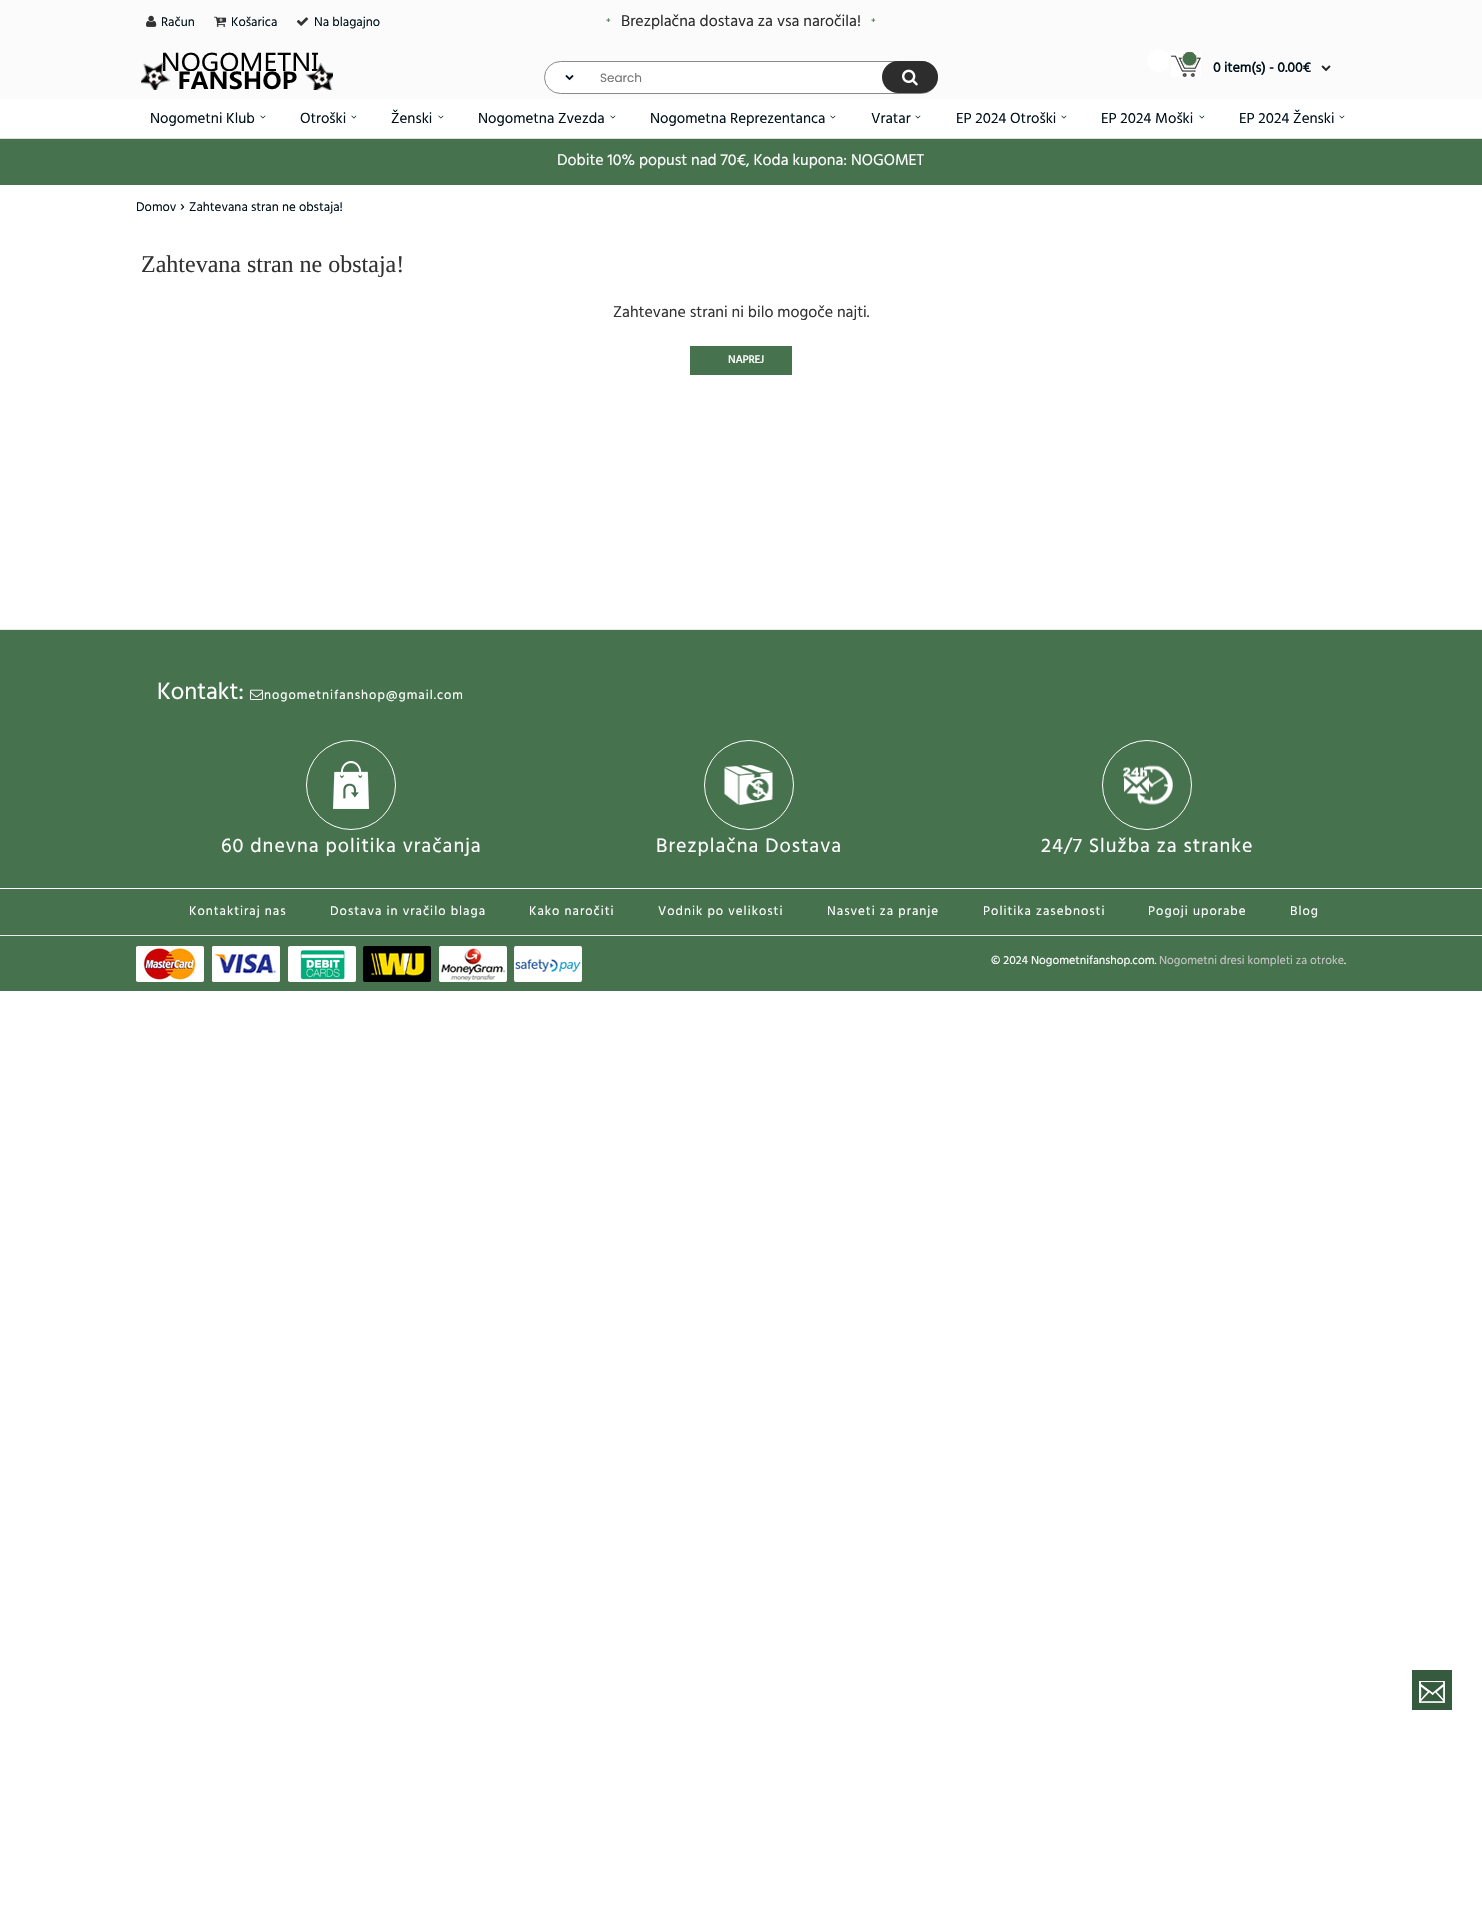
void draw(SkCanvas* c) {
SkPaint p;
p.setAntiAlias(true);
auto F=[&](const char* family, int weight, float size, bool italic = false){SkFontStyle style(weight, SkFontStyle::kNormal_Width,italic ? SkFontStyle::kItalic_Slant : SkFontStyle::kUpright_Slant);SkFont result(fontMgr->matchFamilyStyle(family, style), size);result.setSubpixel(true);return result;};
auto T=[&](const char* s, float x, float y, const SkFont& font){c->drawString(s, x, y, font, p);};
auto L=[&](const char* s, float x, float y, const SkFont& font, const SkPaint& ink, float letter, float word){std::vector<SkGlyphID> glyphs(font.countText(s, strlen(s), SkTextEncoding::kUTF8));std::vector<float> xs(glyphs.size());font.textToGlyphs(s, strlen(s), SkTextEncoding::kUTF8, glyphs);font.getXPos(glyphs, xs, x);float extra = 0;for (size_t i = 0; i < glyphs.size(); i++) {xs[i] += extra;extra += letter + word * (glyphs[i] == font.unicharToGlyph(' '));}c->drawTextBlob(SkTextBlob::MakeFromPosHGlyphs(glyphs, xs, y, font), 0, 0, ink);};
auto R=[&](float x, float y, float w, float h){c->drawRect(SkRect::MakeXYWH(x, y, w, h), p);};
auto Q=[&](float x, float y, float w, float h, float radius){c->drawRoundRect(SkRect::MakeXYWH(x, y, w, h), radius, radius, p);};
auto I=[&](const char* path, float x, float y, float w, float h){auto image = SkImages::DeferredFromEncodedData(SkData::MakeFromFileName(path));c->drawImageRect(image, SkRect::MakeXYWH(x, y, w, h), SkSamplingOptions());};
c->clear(0xffffffff);
p.setColor(0xfffbfbfb);
R(0,0,1482,99);
I("1.png",146,15,11,12);
auto f1 = F("Hind",400,13);
p.setColor(0xff00111a);
T("Račun",161,26,f1);
I("2.png",214,16,13,11);
T("Košarica",231,26,f1);
I("3.png",296,17,13,9);
T("Na blagajno",314,26,f1);
auto f2 = F("Hind",700,8);
p.setColor(0xff46724e);
T("+",606,23,f2);
auto f3 = F("Hind",400,16);
p.setColor(0xff2d2d2d);
T("Brezplačna dostava za vsa naročila!",621,26,f3);
p.setColor(0xff46724e);
T("+",871,23,f2);
I("4.png",141,52,192,38);
p.setColor(0xffffffff);
c->drawCircle(1158.5,60.5,11.5,p);
I("5.png",1171,52,30,25);
auto f4 = F("Hind",700,14);
p.setColor(0xff00111a);
T("0 item(s) - 0.00€",1213,72,f4);
I("6.png",1321,65,10,7);
p.setColor(0xffffffff);
c->drawRoundRect(SkRect::MakeXYWH(544.5,61.5,393,32),16,16,p);
p.setStroke(true);
p.setStrokeWidth(1);
p.setColor(0xff898989);
c->drawRoundRect(SkRect::MakeXYWH(544.5,61.5,393,32),16,16,p);
I("7.png",565,75,9,6);
auto f5 = F("Poppins",400,12);
p.setStroke(false);
p.setColor(0xff757575);
T("Search",600,82,f5);
p.setColor(0xff2d2d2d);
Q(882,61,56,32,16);
I("8.png",902,69,16,17);
p.setColor(0xffdddddd);
R(0,138,1482,1);
auto f6 = F("Hind",400,15);
p.setColor(0xff00111a);
T("Nogometni Klub",150,123,f6);
I("9.png",260,115,6,4);
T("Otroški",300,123,f6);
I("9.png",351,115,6,4);
T("Ženski",391,123,f6);
I("9.png",438,115,6,4);
T("Nogometna Zvezda",478,123,f6);
I("9.png",610,115,6,4);
T("Nogometna Reprezentanca",650,123,f6);
I("9.png",830,115,6,4);
T("Vratar",871,123,f6);
I("9.png",915,115,6,4);
T("EP 2024 Otroški",956,123,f6);
I("9.png",1061,115,6,4);
T("EP 2024 Moški",1101,123,f6);
I("9.png",1199,115,6,4);
T("EP 2024 Ženski",1239,123,f6);
I("9.png",1339,115,6,4);
p.setColor(0xff46724e);
R(0,139,1482,46);
p.setColor(0xffffffff);
T("Dobite 10% popust nad 70€, Koda kupona: NOGOMET",557,165,f3);
p.setColor(0xff00111a);
T("Domov",136,211,f1);
T("›",180,211,f3);
T("Zahtevana stran ne obstaja!",189,211,f1);
auto f7 = F("Liberation Serif",400,24);
p.setColor(0xff333333);
T("Zahtevana stran ne obstaja!",141,272,f7);
T("Zahtevane strani ni bilo mogoče najti.",613,317,f3);
p.setColor(0xff46724e);
R(690,346,102,29);
auto f8 = F("Hind",700,11);
p.setColor(0xffffffff);
T("NAPREJ",728,363,f8);
p.setColor(0xffe8e8e8);
R(0,629,1482,1);
p.setColor(0xff46724e);
R(0,630,1482,305);
auto f9 = F("Hind",400,24);
p.setColor(0xffffffff);
T("Kontakt:",157,699,f9);
I("10.png",250,689,13,11);
L("nogometnifanshop@gmail.com",264,699,f1,p,1,0);
R(0,888,1482,1);
p.setStroke(true);
c->drawCircle(351,785,44.5,p);
I("11.png",333,761,36,48);
auto f10 = F("Hind",400,20);
p.setStroke(false);
L("60 dnevna politika vračanja",221,852,f10,p,1,0);
p.setStroke(true);
c->drawCircle(749,785,44.5,p);
I("12.png",724,765,49,40);
p.setStroke(false);
L("Brezplačna Dostava",656,852,f10,p,1,0);
p.setStroke(true);
c->drawCircle(1147,785,44.5,p);
I("13.png",1123,765,50,40);
p.setStroke(false);
L("24/7 Služba za stranke",1041,852,f10,p,1,0);
L("Kontaktiraj nas",189,915,f1,p,1,0);
L("Dostava in vračilo blaga",330,915,f1,p,1,0);
L("Kako naročiti",529,915,f1,p,1,0);
L("Vodnik po velikosti",658,915,f1,p,1,0);
L("Nasveti za pranje",827,915,f1,p,1,0);
L("Politika zasebnosti",983,915,f1,p,1,0);
L("Pogoji uporabe",1148,915,f1,p,1,0);
L("Blog",1290,915,f1,p,1,0);
p.setColor(0xff46724e);
R(0,936,1482,55);
p.setColor(0xffececec);
R(0,935,1482,1);
I("14.png",136,946,446,36);
auto f11 = F("Hind",400,12);
p.setColor(0xffffffff);
T("© 2024 Nogometnifanshop.com.",991,964,f11);
p.setColor(0xffc5c5c5);
T("Nogometni dresi kompleti za otroke",1159,964,f11);
p.setColor(0xffffffff);
T(".",1344,964,f11);
p.setColor(0xff365a3d);
R(1412,1670,40,40);
I("15.png",1419,1681,26,22);
}
